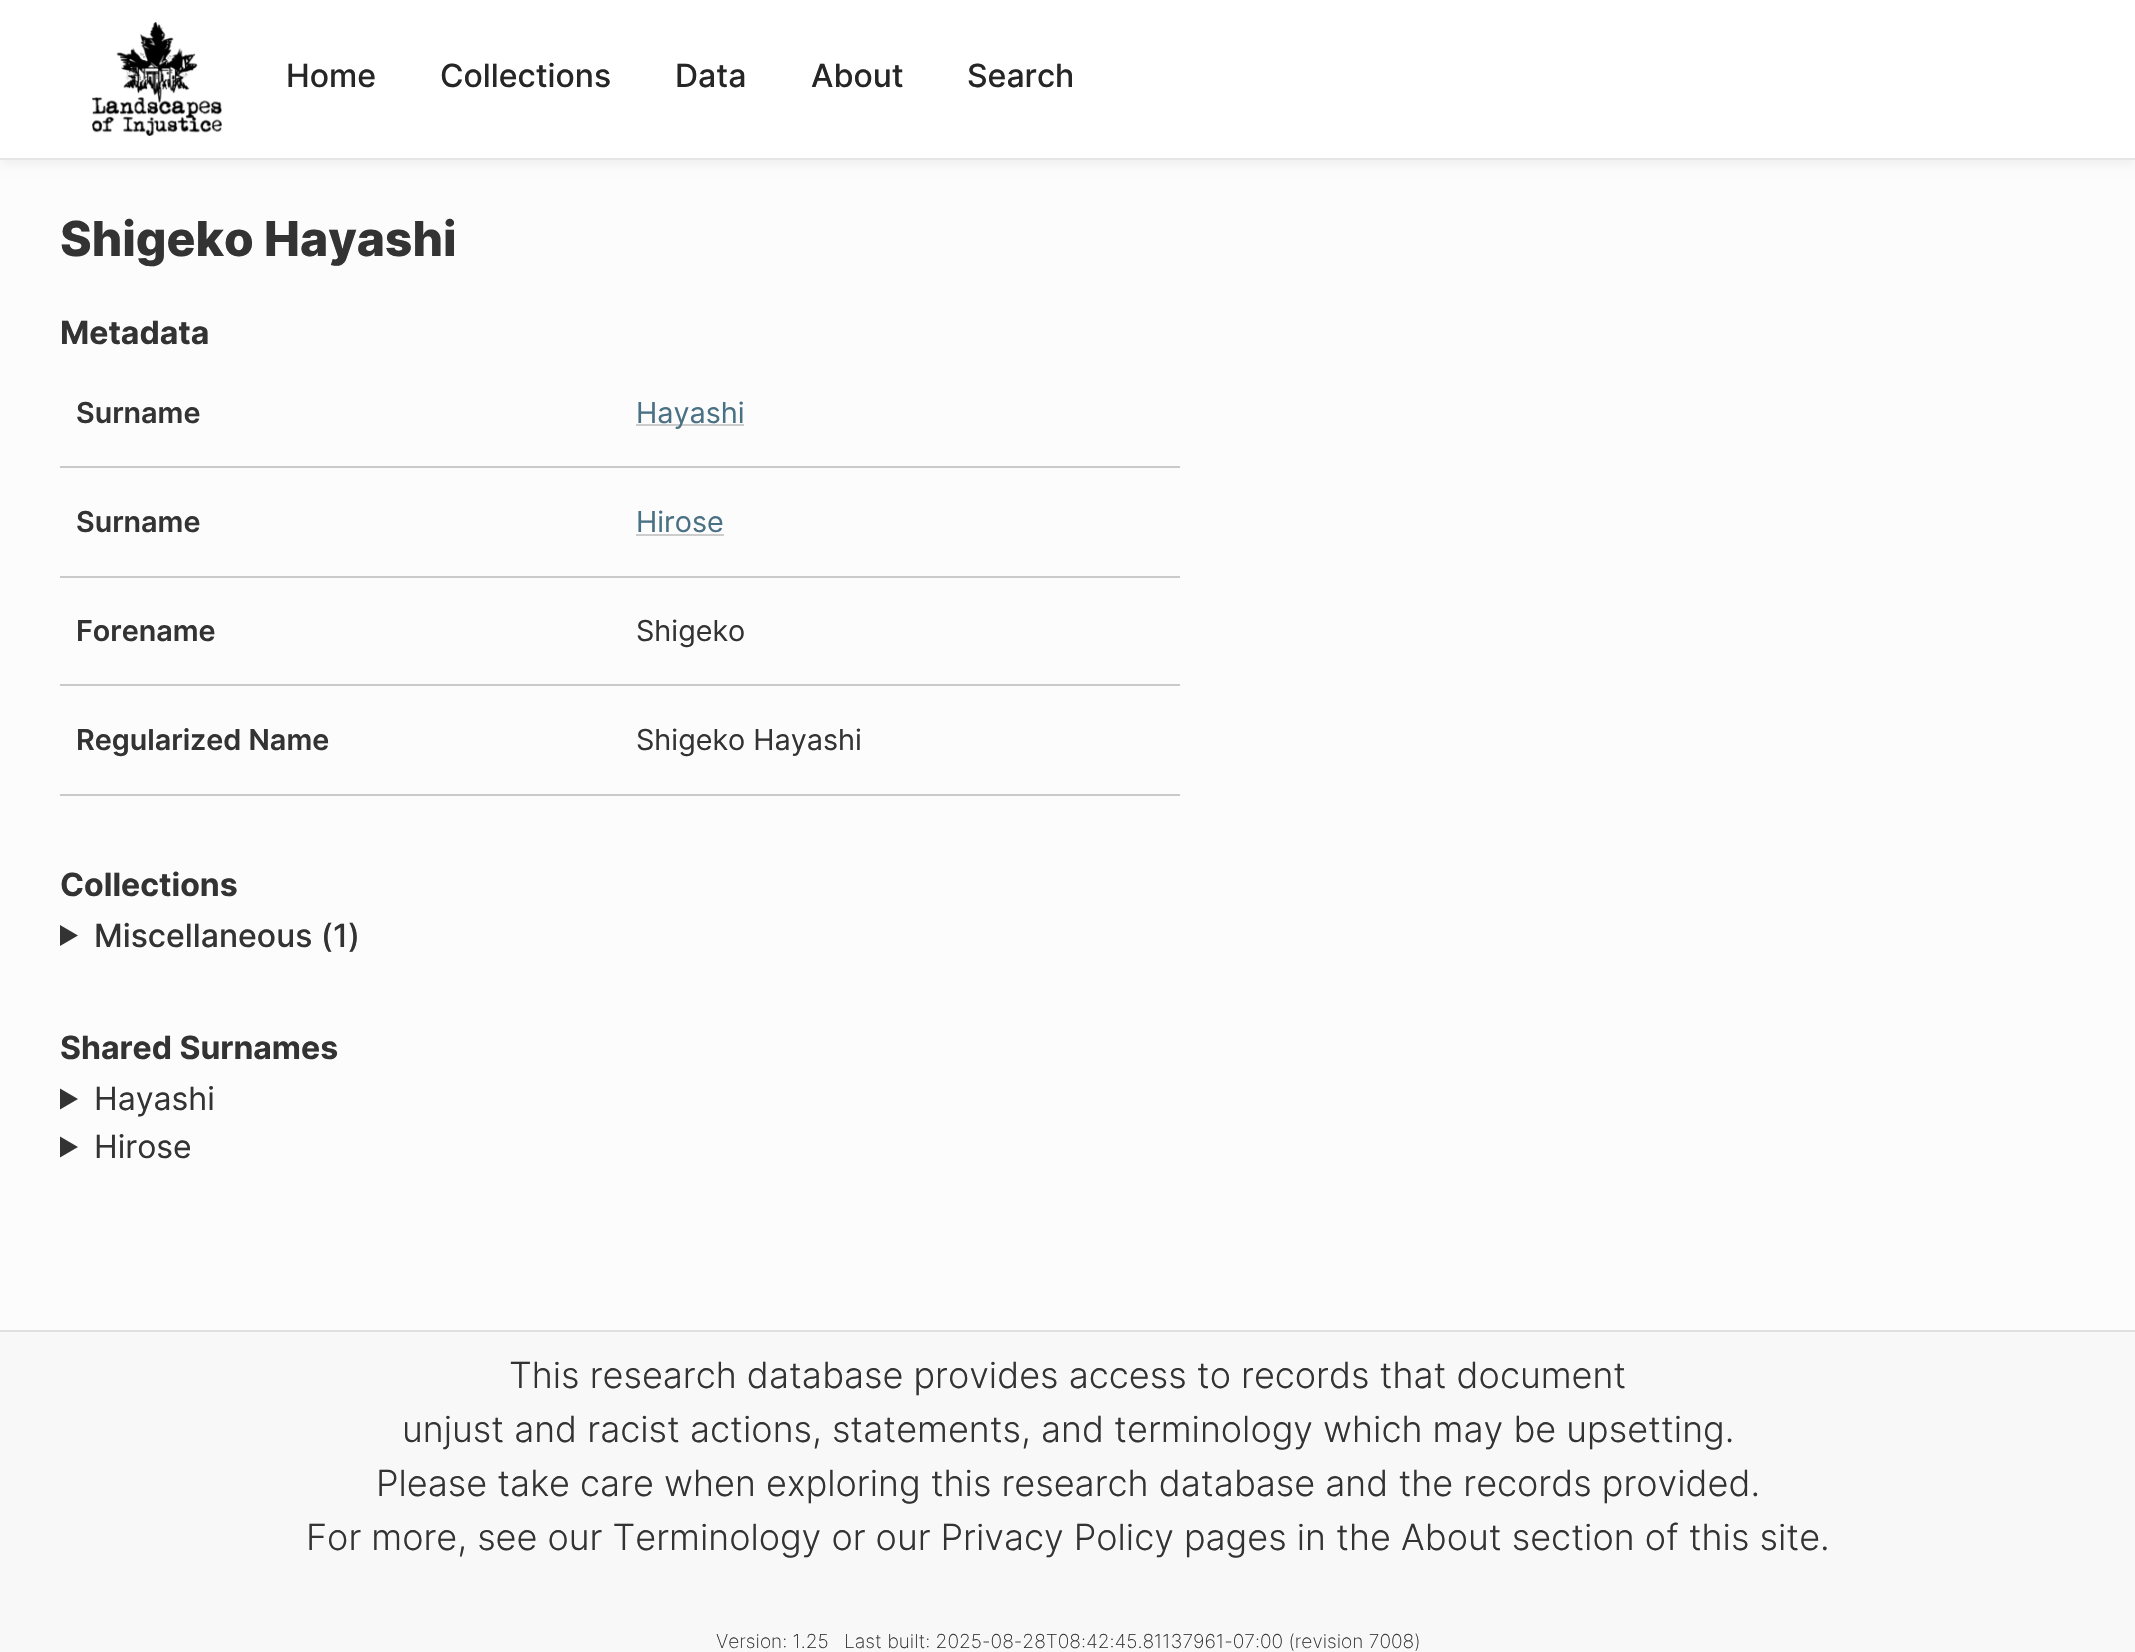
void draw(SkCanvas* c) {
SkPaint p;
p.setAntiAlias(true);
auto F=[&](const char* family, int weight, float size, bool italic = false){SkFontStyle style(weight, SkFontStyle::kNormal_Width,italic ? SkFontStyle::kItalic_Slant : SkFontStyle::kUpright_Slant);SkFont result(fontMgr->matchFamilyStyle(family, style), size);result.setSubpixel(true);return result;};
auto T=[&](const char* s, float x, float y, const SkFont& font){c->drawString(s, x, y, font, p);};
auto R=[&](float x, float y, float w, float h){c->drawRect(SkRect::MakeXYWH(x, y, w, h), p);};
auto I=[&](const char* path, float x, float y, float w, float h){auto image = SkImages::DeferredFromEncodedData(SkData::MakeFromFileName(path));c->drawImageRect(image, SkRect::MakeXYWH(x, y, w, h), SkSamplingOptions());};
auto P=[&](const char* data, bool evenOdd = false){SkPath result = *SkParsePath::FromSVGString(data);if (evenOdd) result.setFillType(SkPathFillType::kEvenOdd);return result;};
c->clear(0xfffcfcfc);
p.setColor(0x0d000000);
p.setMaskFilter(SkMaskFilter::MakeBlur(kNormal_SkBlurStyle, 5));
c->drawRect(SkRect::MakeXYWH(0,4,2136,160),p);
p.setMaskFilter(nullptr);
p.setColor(0xffffffff);
R(0,0,2135,158);
p.setColor(0xffe6e6e6);
R(0,158,2135,2);
I("1.png",92,22,130,114);
auto f1 = F("Inter",500,32);
p.setColor(0xff262626);
T("Home",286,87,f1);
T("Collections",440,87,f1);
T("Data",675,87,f1);
T("About",811,87,f1);
T("Search",967,87,f1);
auto f2 = F("Inter",800,48);
p.setColor(0xff333333);
T("Shigeko Hayashi",60,256,f2);
auto f3 = F("Inter",700,32);
T("Metadata",60,344,f3);
auto f4 = F("Inter",600,28.75);
T("Surname",76,423,f4);
p.setColor(0xffcacaca);
R(60,466,1120,2);
p.setColor(0xffcccccc);
R(636,424,108,2);
auto f5 = F("Inter",400,28.75);
p.setColor(0xff4a7084);
T("Hayashi",636,423,f5);
p.setColor(0xff333333);
T("Surname",76,532,f4);
p.setColor(0xffcacaca);
R(60,576,1120,2);
p.setColor(0xff4a7084);
T("Hirose",636,532,f5);
p.setColor(0xffcccccc);
R(636,534,88,2);
p.setColor(0xff333333);
T("Forename",76,641,f4);
p.setColor(0xffcacaca);
R(60,684,1120,2);
p.setColor(0xff333333);
T("Shigeko",636,641,f5);
T("Regularized Name",76,750,f4);
p.setColor(0xffcacaca);
R(60,794,1120,2);
p.setColor(0xff333333);
T("Shigeko Hayashi",636,750,f5);
T("Collections",60,896,f3);
c->drawPath(P("M60 925l18 10.5l-18 10.5z"),p);
T("Miscellaneous (1)",94,947,f1);
T("Shared Surnames",60,1059,f3);
c->drawPath(P("M60 1088.5l18 10.5l-18 10.5z"),p);
auto f6 = F("Inter",400,32);
T("Hayashi",94,1110,f6);
c->drawPath(P("M60 1136.5l18 10.5l-18 10.5z"),p);
T("Hirose",94,1158,f6);
p.setColor(0xfff8f8f8);
R(0,1332,2135,320);
p.setColor(0xffdfdfdf);
R(0,1330,2135,2);
auto f7 = F("Inter",300,36);
p.setColor(0xff333333);
T("This research database provides access to records that document",509,1388,f7);
T("unjust and racist actions, statements, and terminology which may be upsetting.",402,1442,f7);
T("Please take care when exploring this research database and the records provided.",376,1496,f7);
T("For more, see our Terminology or our Privacy Policy pages in the About section of this site.",306,1550,f7);
auto f8 = F("Inter",200,19.2);
T("Version: 1.25",716,1648,f8);
T("Last built: 2025-08-28T08:42:45.81137961-07:00 (revision 7008)",844,1648,f8);
}
